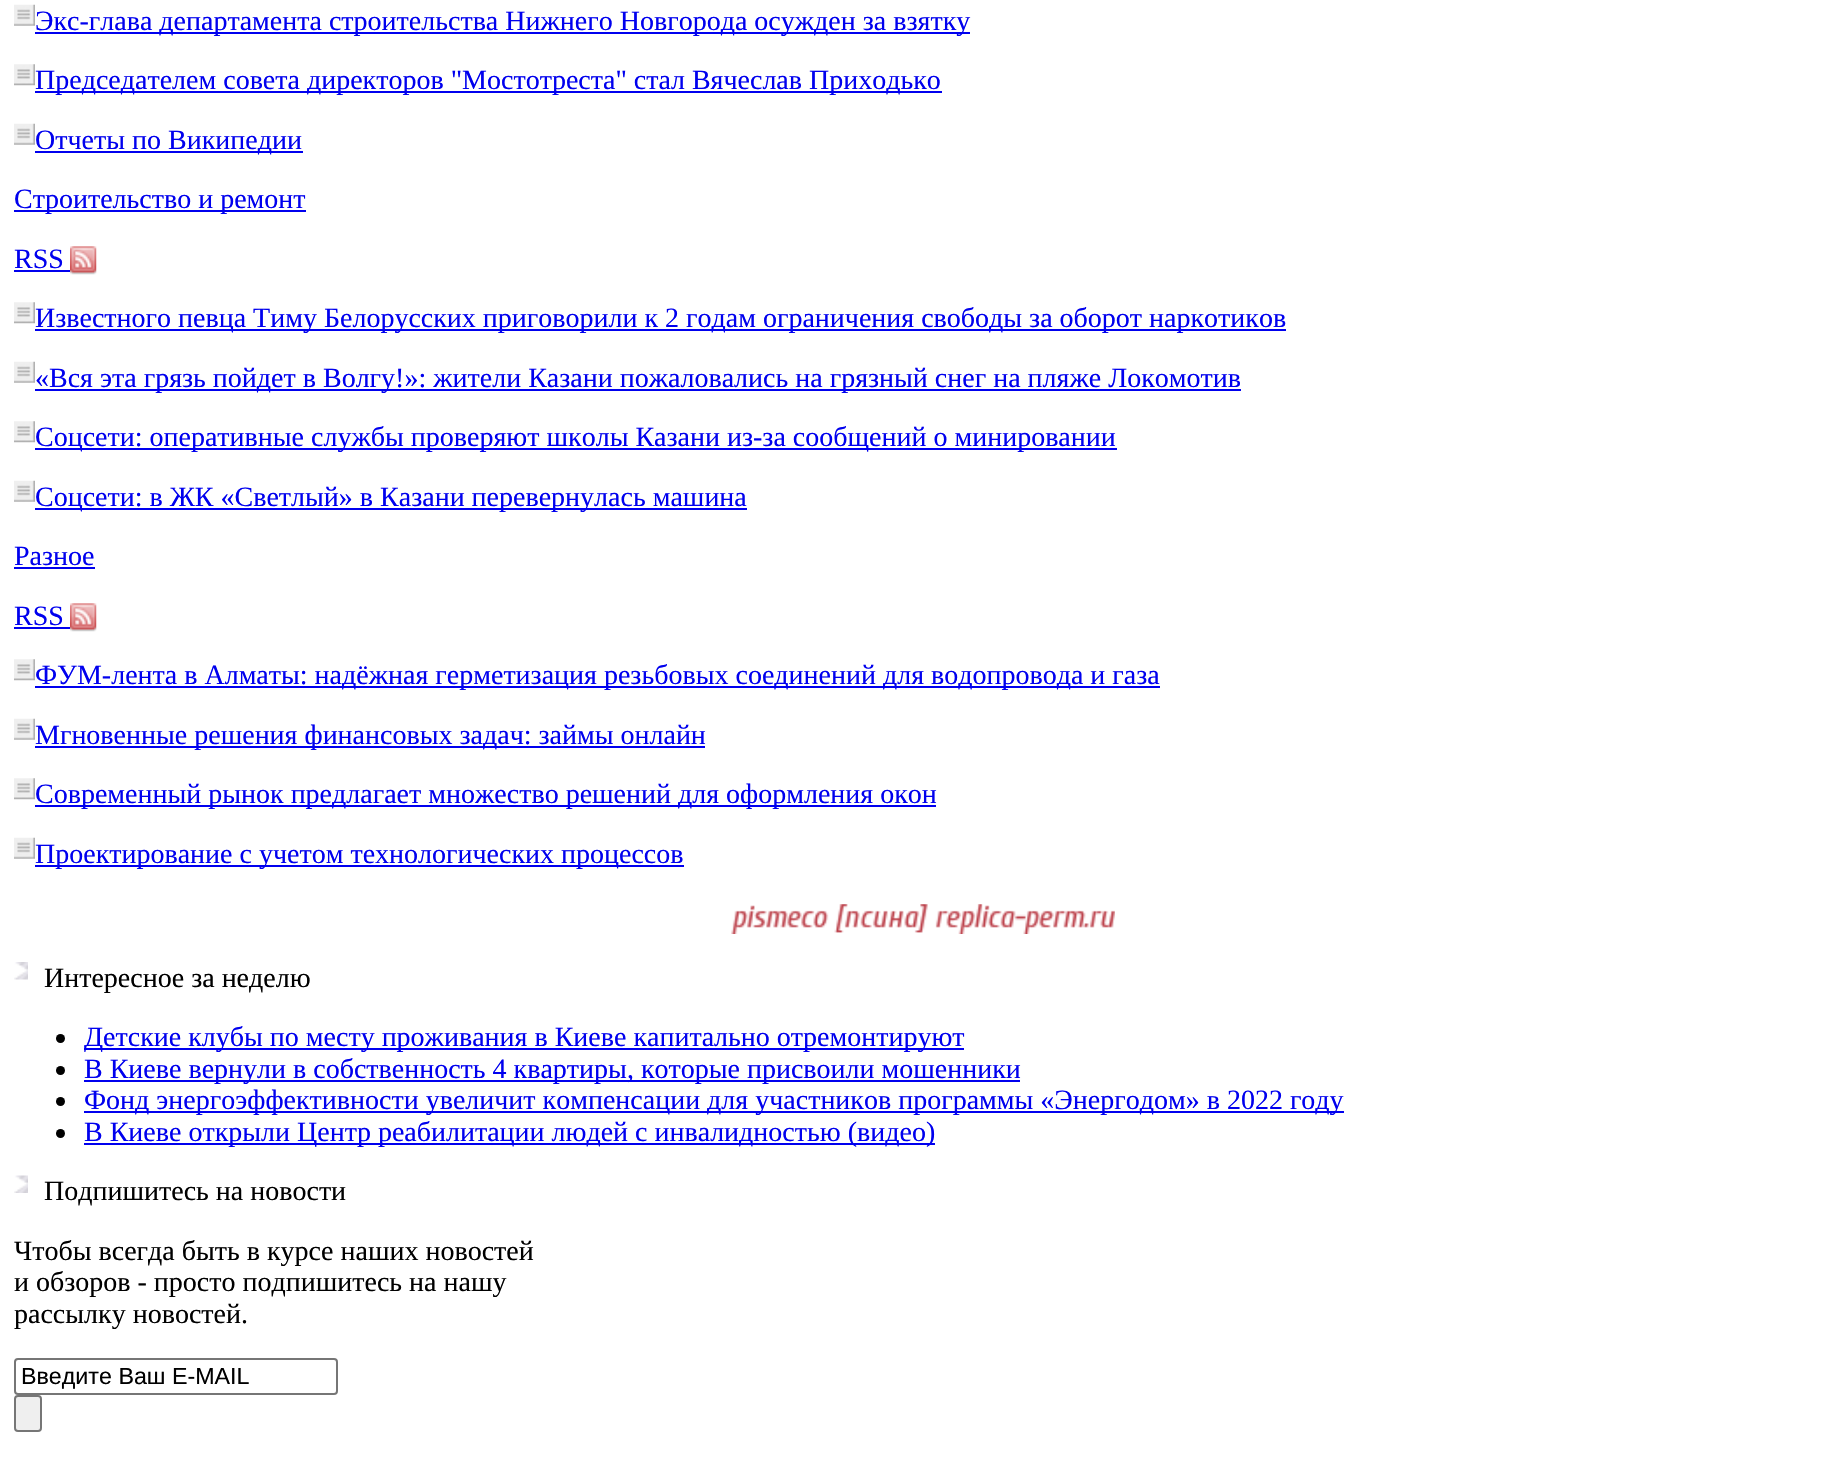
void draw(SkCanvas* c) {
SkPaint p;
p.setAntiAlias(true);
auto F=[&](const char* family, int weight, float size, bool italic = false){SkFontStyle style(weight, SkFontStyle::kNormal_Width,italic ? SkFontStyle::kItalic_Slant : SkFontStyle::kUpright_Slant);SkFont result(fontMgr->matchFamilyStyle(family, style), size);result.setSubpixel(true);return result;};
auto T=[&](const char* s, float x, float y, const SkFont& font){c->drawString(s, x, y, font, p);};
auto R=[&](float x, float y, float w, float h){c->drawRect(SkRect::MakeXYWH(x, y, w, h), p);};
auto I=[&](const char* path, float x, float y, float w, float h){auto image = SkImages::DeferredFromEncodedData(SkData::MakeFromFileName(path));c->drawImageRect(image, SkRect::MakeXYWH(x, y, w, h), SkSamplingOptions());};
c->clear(0xffffffff);
I("1.png",14,4,21,22);
p.setColor(0xff0000ee);
R(35,32,935,2);
auto f1 = F("Liberation Serif",400,28);
T("Экс-глава департамента строительства Нижнего Новгорода осужден за взятку",35,30,f1);
I("2.png",14,64,21,22);
R(35,91,907,2);
T("Председателем совета директоров \"Мостотреста\" стал Вячеслав Приходько",35,89,f1);
I("1.png",14,123,21,22);
R(35,151,268,2);
T("Отчеты по Википедии",35,149,f1);
R(14,210,292,2);
T("Строительство и ремонт",14,208,f1);
T("RSS",14,268,f1);
R(14,270,56,2);
I("3.png",70,246,27,29);
I("2.png",14,302,21,22);
R(35,329,1251,2);
T("Известного певца Тиму Белорусских приговорили к 2 годам ограничения свободы за оборот наркотиков",35,327,f1);
I("1.png",14,361,21,22);
R(35,389,1206,2);
T("«Вся эта грязь пойдет в Волгу!»: жители Казани пожаловались на грязный снег на пляже Локомотив",35,387,f1);
I("2.png",14,421,21,22);
R(35,448,1082,2);
T("Соцсети: оперативные службы проверяют школы Казани из-за сообщений о минировании",35,446,f1);
I("1.png",14,480,21,22);
R(35,508,712,2);
T("Соцсети: в ЖК «Светлый» в Казани перевернулась машина",35,506,f1);
T("Разное",14,565,f1);
R(14,567,81,2);
T("RSS",14,625,f1);
R(14,627,56,2);
I("3.png",70,603,27,29);
I("2.png",14,659,21,22);
R(35,686,1125,2);
T("ФУМ-лента в Алматы: надёжная герметизация резьбовых соединений для водопровода и газа",35,684,f1);
I("1.png",14,718,21,22);
R(35,746,670,2);
T("Мгновенные решения финансовых задач: займы онлайн",35,744,f1);
I("2.png",14,778,21,22);
R(35,805,901,2);
T("Современный рынок предлагает множество решений для оформления окон",35,803,f1);
I("1.png",14,837,21,22);
R(35,865,649,2);
T("Проектирование с учетом технологических процессов",35,863,f1);
I("4.png",731,904,384,30);
I("5.png",14,962,14,18);
p.setColor(0xff000000);
T("Интересное за неделю",44,987,f1);
c->drawCircle(60.5,1038.5,4.5,p);
p.setColor(0xff0000ee);
R(84,1048,880,2);
T("Детские клубы по месту проживания в Киеве капитально отремонтируют",84,1046,f1);
p.setColor(0xff000000);
c->drawCircle(60.5,1070.5,4.5,p);
p.setColor(0xff0000ee);
R(84,1080,936,2);
T("В Киеве вернули в собственность 4 квартиры, которые присвоили мошенники",84,1078,f1);
p.setColor(0xff000000);
c->drawCircle(60.5,1101.5,4.5,p);
p.setColor(0xff0000ee);
R(84,1111,1260,2);
T("Фонд энергоэффективности увеличит компенсации для участников программы «Энергодом» в 2022 году",84,1109,f1);
p.setColor(0xff000000);
c->drawCircle(60.5,1133.5,4.5,p);
p.setColor(0xff0000ee);
R(84,1143,851,2);
T("В Киеве открыли Центр реабилитации людей с инвалидностью (видео)",84,1141,f1);
I("6.png",14,1175,14,18);
p.setColor(0xff000000);
T("Подпишитесь на новости",44,1200,f1);
T("Чтобы всегда быть в курсе наших новостей",14,1260,f1);
T("и обзоров - просто подпишитесь на нашу",14,1291,f1);
T("рассылку новостей.",14,1323,f1);
p.setStroke(true);
p.setStrokeWidth(2);
p.setColor(0xff767676);
c->drawRoundRect(SkRect::MakeXYWH(15,1359,322,35),3,3,p);
auto f2 = F("Liberation Sans",400,23.25);
p.setStroke(false);
p.setColor(0xff000000);
T("Введите Ваш E-MAIL",21,1384,f2);
p.setColor(0xffefefef);
c->drawRoundRect(SkRect::MakeXYWH(15,1396,26,35),3,3,p);
p.setStroke(true);
p.setColor(0xff767676);
c->drawRoundRect(SkRect::MakeXYWH(15,1396,26,35),3,3,p);
}
